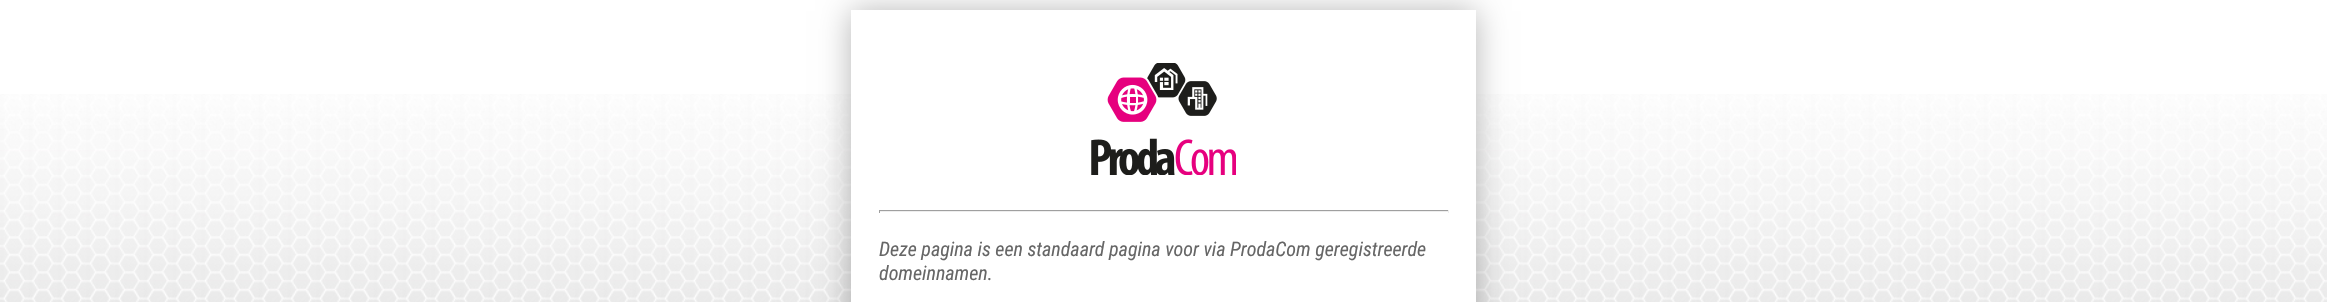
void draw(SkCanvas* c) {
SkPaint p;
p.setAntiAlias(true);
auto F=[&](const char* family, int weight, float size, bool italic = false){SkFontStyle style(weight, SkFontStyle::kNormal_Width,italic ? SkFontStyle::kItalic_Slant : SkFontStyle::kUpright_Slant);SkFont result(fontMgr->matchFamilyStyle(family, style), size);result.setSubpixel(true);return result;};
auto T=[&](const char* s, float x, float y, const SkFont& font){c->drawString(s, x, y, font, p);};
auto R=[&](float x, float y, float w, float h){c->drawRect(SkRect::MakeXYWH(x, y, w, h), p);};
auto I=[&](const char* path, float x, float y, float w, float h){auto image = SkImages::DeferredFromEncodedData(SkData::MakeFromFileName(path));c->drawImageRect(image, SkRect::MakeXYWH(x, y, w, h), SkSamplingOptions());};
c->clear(0xffffffff);
I("1.png",0,94,2327,208);
p.setColor(0x4a000000);
p.setMaskFilter(SkMaskFilter::MakeBlur(kNormal_SkBlurStyle, 15));
c->drawRect(SkRect::MakeXYWH(851,11,625,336),p);
p.setMaskFilter(nullptr);
p.setColor(0xffffffff);
R(851,10,625,292);
I("2.png",1091,63,145,112);
p.setColor(0xff9f9f9f);
R(879,210,570,1);
p.setColor(0xffeeeeee);
R(1448,210,1,3);
R(879,211,570,1);
p.setColor(0xff9f9f9f);
R(879,210,1,3);
auto f1 = F("Roboto Condensed",400,20,true);
p.setColor(0xff666666);
T("Deze pagina is een standaard pagina voor via ProdaCom geregistreerde",879,256,f1);
T("domeinnamen.",879,280,f1);
}
